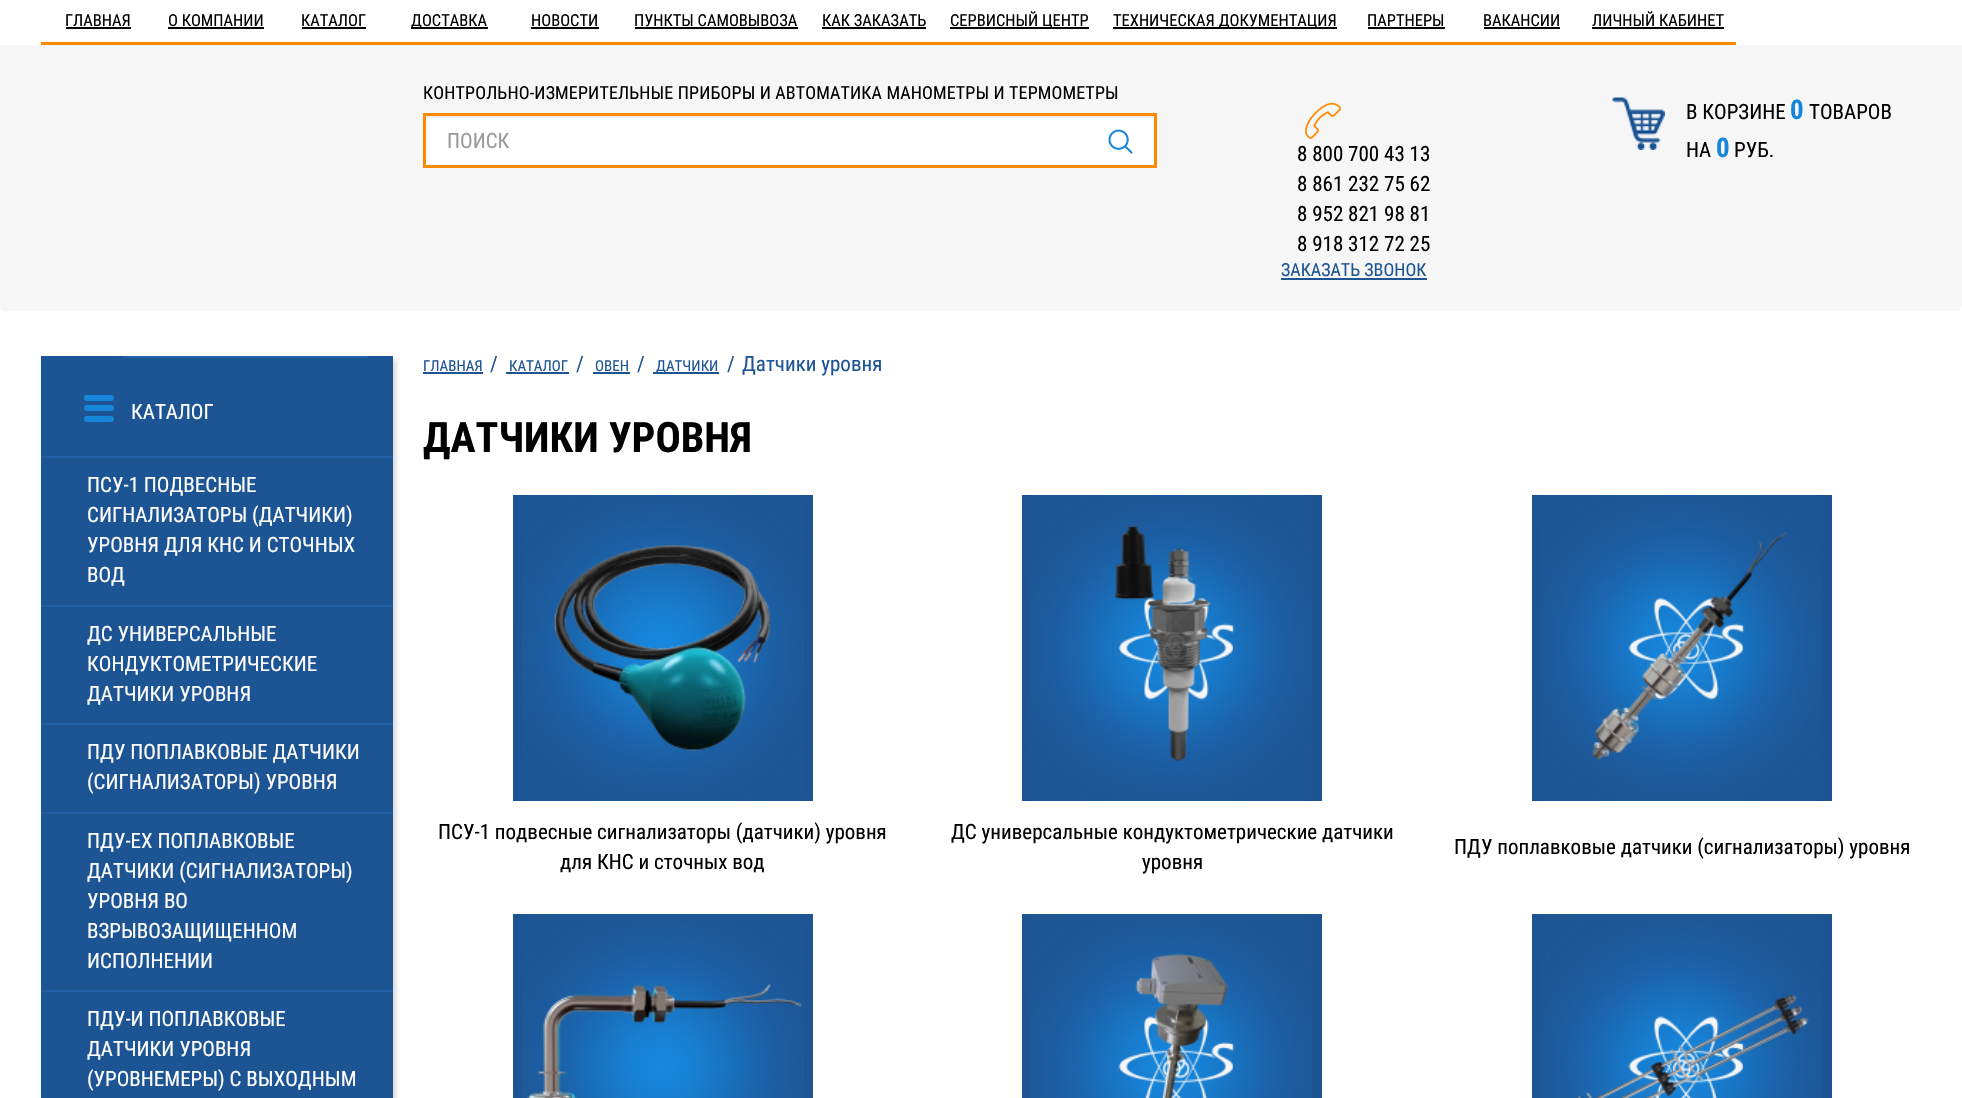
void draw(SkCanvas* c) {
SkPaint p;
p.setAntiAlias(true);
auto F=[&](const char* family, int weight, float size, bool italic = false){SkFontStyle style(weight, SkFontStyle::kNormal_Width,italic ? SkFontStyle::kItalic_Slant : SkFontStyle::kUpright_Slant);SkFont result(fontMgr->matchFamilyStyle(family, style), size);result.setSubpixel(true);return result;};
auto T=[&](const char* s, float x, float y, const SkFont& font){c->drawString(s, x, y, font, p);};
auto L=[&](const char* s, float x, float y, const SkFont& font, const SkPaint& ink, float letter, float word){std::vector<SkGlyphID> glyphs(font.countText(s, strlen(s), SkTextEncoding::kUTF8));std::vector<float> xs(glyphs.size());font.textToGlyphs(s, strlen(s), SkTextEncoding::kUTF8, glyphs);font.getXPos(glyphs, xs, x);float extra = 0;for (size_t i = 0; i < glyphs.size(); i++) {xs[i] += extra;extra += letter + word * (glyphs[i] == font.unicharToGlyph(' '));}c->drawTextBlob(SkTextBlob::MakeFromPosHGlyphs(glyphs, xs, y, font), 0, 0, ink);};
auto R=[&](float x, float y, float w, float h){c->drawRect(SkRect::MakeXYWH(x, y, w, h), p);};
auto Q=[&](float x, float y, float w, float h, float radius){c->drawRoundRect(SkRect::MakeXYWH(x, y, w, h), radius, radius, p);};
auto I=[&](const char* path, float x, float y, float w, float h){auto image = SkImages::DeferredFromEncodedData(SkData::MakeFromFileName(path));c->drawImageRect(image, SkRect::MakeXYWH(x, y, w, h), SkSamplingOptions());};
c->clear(0xffffffff);
p.setColor(0xfff6f6f6);
Q(0,0,1962,311,6);
p.setColor(0xffffffff);
R(0,0,1962,45);
p.setColor(0xffff8a00);
R(41,42,1695,3);
auto f1 = F("Roboto Condensed",400,16.5);
p.setColor(0xff000000);
T("ГЛАВНАЯ",65,26,f1);
R(66,27,65,2);
T("О КОМПАНИИ",168,26,f1);
R(168,27,96,2);
T("КАТАЛОГ",301,26,f1);
R(302,27,64,2);
R(411,27,77,2);
T("ДОСТАВКА",411,26,f1);
T("НОВОСТИ",531,26,f1);
R(531,27,68,2);
T("ПУНКТЫ САМОВЫВОЗА",634,26,f1);
R(635,27,163,2);
T("КАК ЗАКАЗАТЬ",822,26,f1);
R(822,27,104,2);
R(950,27,139,2);
T("СЕРВИСНЫЙ ЦЕНТР",950,26,f1);
R(1113,27,224,2);
T("ТЕХНИЧЕСКАЯ ДОКУМЕНТАЦИЯ",1113,26,f1);
T("ПАРТНЕРЫ",1367,26,f1);
R(1368,27,77,2);
T("ВАКАНСИИ",1483,26,f1);
R(1484,27,76,2);
T("ЛИЧНЫЙ КАБИНЕТ",1592,26,f1);
R(1592,27,132,2);
auto f2 = F("Roboto Condensed",400,18);
L("КОНТРОЛЬНО-ИЗМЕРИТЕЛЬНЫЕ ПРИБОРЫ И АВТОМАТИКА МАНОМЕТРЫ И ТЕРМОМЕТРЫ",423,99,f2,p,.15,0);
p.setStroke(true);
p.setStrokeWidth(3);
p.setColor(0xffff8a00);
c->drawRect(SkRect::MakeXYWH(424.5,114.5,731,52),p);
p.setStroke(false);
p.setColor(0xffffffff);
R(426,118,728,47);
p.setColor(0xffececec);
R(426,116,728,2);
auto f3 = F("Roboto Condensed",400,21);
p.setColor(0xff999999);
T("ПОИСК",447,148,f3);
I("1.png",1108,129,25,25);
I("2.png",1612,97,53,53);
p.setColor(0xff000000);
T("В КОРЗИНЕ",1686,119,f3);
auto f4 = F("Roboto Condensed",700,27);
p.setColor(0xff1686db);
T("0",1790,119,f4);
p.setColor(0xff000000);
T("ТОВАРОВ",1809,119,f3);
T("НА",1686,157,f3);
p.setColor(0xff1686db);
T("0",1716,157,f4);
p.setColor(0xff000000);
T("РУБ.",1734,157,f3);
I("3.png",1305,102,36,37);
T("8 800 700 43 13",1297,161,f3);
T("8 861 232 75 62",1297,191,f3);
T("8 952 821 98 81",1297,221,f3);
T("8 918 312 72 25",1297,251,f3);
p.setColor(0xff1d5494);
T("ЗАКАЗАТЬ ЗВОНОК",1281,276,f2);
R(1281,278,146,2);
p.setColor(0x26000000);
p.setMaskFilter(SkMaskFilter::MakeBlur(kNormal_SkBlurStyle, 2));
c->drawRect(SkRect::MakeXYWH(44,360,352,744),p);
p.setMaskFilter(nullptr);
p.setColor(0xff1d5494);
R(41,356,352,742);
p.setColor(0xff1686db);
Q(84,395,30,6,3);
Q(84,405,30,6,3);
Q(84,416,30,6,3);
p.setColor(0xff2260a8);
R(122,356,246,2);
p.setColor(0xffffffff);
T("КАТАЛОГ",131,419,f3);
p.setColor(0xff2260a8);
R(41,456,352,2);
p.setColor(0xffffffff);
T("ПСУ-1 ПОДВЕСНЫЕ",87,492,f3);
T("СИГНАЛИЗАТОРЫ (ДАТЧИКИ)",87,522,f3);
T("УРОВНЯ ДЛЯ КНС И СТОЧНЫХ",87,552,f3);
T("ВОД",87,582,f3);
p.setColor(0xff2260a8);
R(41,605,352,2);
p.setColor(0xffffffff);
T("ДС УНИВЕРСАЛЬНЫЕ",87,641,f3);
T("КОНДУКТОМЕТРИЧЕСКИЕ",87,671,f3);
T("ДАТЧИКИ УРОВНЯ",87,701,f3);
p.setColor(0xff2260a8);
R(41,723,352,2);
p.setColor(0xffffffff);
T("ПДУ ПОПЛАВКОВЫЕ ДАТЧИКИ",87,759,f3);
T("(СИГНАЛИЗАТОРЫ) УРОВНЯ",87,789,f3);
p.setColor(0xff2260a8);
R(41,812,352,2);
p.setColor(0xffffffff);
T("ПДУ-EX ПОПЛАВКОВЫЕ",87,848,f3);
T("ДАТЧИКИ (СИГНАЛИЗАТОРЫ)",87,878,f3);
T("УРОВНЯ ВО",87,908,f3);
T("ВЗРЫВОЗАЩИЩЕННОМ",87,938,f3);
T("ИСПОЛНЕНИИ",87,968,f3);
p.setColor(0xff2260a8);
R(41,990,352,2);
p.setColor(0xffffffff);
T("ПДУ-И ПОПЛАВКОВЫЕ",87,1026,f3);
T("ДАТЧИКИ УРОВНЯ",87,1056,f3);
T("(УРОВНЕМЕРЫ) С ВЫХОДНЫМ",87,1086,f3);
auto f5 = F("Roboto Condensed",400,15);
p.setColor(0xff1d5494);
T("ГЛАВНАЯ",423,371,f5);
R(423,372,60,2);
T("/",490,371,f3);
T("КАТАЛОГ",509,371,f5);
R(506,372,63,2);
T("/",576,371,f3);
T("ОВЕН",595,371,f5);
R(593,372,37,2);
T("/",637,371,f3);
R(653,372,66,2);
T("ДАТЧИКИ",656,371,f5);
T("/",727,371,f3);
T("Датчики уровня",742,371,f3);
auto f6 = F("Roboto Condensed",700,42);
p.setColor(0xff000000);
T("ДАТЧИКИ УРОВНЯ",423,452,f6);
p.setColor(0xff1d5494);
R(513,495,300,306);
I("4.png",522,495,282,306);
I("5.png",554,545,217,206);
p.setColor(0xff000000);
T("ПСУ-1 подвесные сигнализаторы (датчики) уровня",438,839,f3);
T("для КНС и сточных вод",560,869,f3);
p.setColor(0xff1d5494);
R(1022,495,300,306);
I("6.png",1030,495,282,306);
I("7.png",1114,525,121,236);
p.setColor(0xff000000);
T("ДС универсальные кондуктометрические датчики",951,839,f3);
T("уровня",1142,869,f3);
p.setColor(0xff1d5494);
R(1532,495,300,306);
I("6.png",1540,495,282,306);
I("8.png",1591,532,196,228);
p.setColor(0xff000000);
T("ПДУ поплавковые датчики (сигнализаторы) уровня",1454,854,f3);
p.setColor(0xff1d5494);
R(513,914,300,184);
I("9.png",522,914,282,184);
I("10.png",527,983,275,115);
R(1022,914,300,184);
I("11.png",1030,914,282,184);
I("12.png",1118,953,117,145);
R(1532,914,300,184);
I("11.png",1540,914,282,184);
I("13.png",1577,994,232,104);
}
